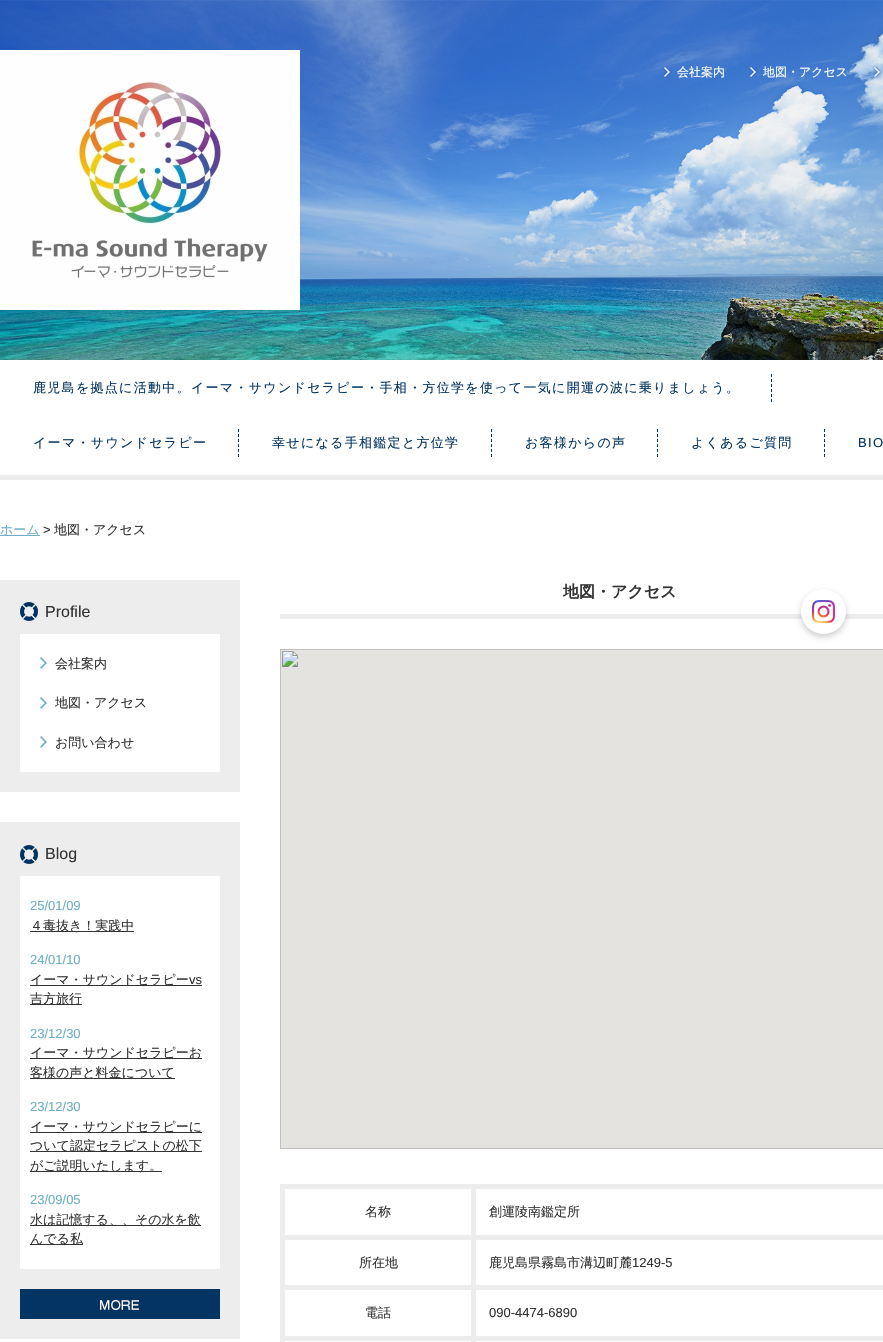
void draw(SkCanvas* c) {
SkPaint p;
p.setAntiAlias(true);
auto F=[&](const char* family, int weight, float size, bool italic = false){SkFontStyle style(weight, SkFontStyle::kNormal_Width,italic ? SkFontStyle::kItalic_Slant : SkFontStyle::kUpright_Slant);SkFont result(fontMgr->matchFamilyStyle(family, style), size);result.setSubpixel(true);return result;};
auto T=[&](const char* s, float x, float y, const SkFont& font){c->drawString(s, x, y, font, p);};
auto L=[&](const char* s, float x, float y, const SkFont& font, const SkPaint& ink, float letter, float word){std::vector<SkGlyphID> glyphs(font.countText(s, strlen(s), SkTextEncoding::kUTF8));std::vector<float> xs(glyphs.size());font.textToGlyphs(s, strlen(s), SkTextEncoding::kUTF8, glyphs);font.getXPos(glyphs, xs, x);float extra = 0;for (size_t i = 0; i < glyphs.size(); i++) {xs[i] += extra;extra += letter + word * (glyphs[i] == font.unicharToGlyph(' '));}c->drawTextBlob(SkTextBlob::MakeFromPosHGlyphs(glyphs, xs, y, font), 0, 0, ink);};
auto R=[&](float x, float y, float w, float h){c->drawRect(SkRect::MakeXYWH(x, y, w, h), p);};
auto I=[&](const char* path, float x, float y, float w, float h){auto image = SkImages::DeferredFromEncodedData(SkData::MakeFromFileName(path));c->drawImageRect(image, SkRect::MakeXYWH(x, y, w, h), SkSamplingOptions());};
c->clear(0xffffffff);
I("1.png",0,0,883,360);
I("2.png",0,50,300,260);
I("3.png",663,66,8,12);
auto f1 = F("WenQuanYi Zen Hei",500,12);
p.setColor(0xffffffff);
T("会社案内",677,76,f1);
I("4.png",749,66,8,12);
T("地図・アクセス",763,76,f1);
I("5.png",872,65,10,14);
p.setColor(0xffededed);
R(0,475,883,5);
I("6.png",771,374,1,28);
auto f2 = F("WenQuanYi Zen Hei",500,13);
p.setColor(0xff043562);
L("鹿児島を拠点に活動中。イーマ・サウンドセラピー・手相・方位学を使って一気に開運の波に乗りましょう。",33,392,f2,p,1.3,0);
I("6.png",238,429,1,28);
L("イーマ・サウンドセラピー",33,447,f2,p,1.3,0);
I("6.png",491,429,1,28);
L("幸せになる手相鑑定と方位学",272,447,f2,p,1.3,0);
I("6.png",657,429,1,28);
L("お客様からの声",525,447,f2,p,1.3,0);
I("6.png",824,429,1,28);
L("よくあるご質問",691,447,f2,p,1.3,0);
auto f3 = F("Liberation Sans",400,13);
L("BIO",858,447,f3,p,1.3,0);
p.setColor(0xff6eaec8);
R(0,535,40,1);
T("ホーム",0,534,f2);
p.setColor(0xff333333);
T(">",43,534,f3);
T("地図・アクセス",54,534,f2);
p.setColor(0xffededed);
R(0,580,240,212);
I("7.png",20,602,18,19);
auto f4 = F("Liberation Sans",400,16);
p.setColor(0xff333333);
T("Profile",45,617,f4);
p.setColor(0xffffffff);
R(20,634,200,138);
I("8.png",40,657,7,12);
p.setColor(0xff333333);
T("会社案内",55,668,f2);
I("8.png",40,697,7,12);
T("地図・アクセス",55,707,f2);
I("8.png",40,736,7,12);
T("お問い合わせ",55,747,f2);
p.setColor(0xffededed);
R(0,822,240,517);
I("7.png",20,845,18,19);
p.setColor(0xff333333);
T("Blog",45,859,f4);
p.setColor(0xffffffff);
R(20,876,200,393);
p.setColor(0xff6eaec8);
T("25/01/09",30,910,f3);
p.setColor(0xff333333);
R(30,931,104,1);
T("４毒抜き！実践中",30,930,f2);
p.setColor(0xff6eaec8);
T("24/01/10",30,964,f3);
p.setColor(0xff333333);
R(30,985,172,1);
T("イーマ・サウンドセラピー",30,984,f2);
T("vs",189,984,f3);
R(30,1004,52,1);
T("吉方旅行",30,1003,f2);
p.setColor(0xff6eaec8);
T("23/12/30",30,1038,f3);
p.setColor(0xff333333);
R(30,1058,172,1);
T("イーマ・サウンドセラピーお",30,1057,f2);
R(30,1078,145,1);
T("客様の声と料金について",30,1077,f2);
p.setColor(0xff6eaec8);
T("23/12/30",30,1111,f3);
p.setColor(0xff333333);
R(30,1132,172,1);
T("イーマ・サウンドセラピーに",30,1131,f2);
R(30,1151,172,1);
T("ついて認定セラピストの松下",30,1150,f2);
R(30,1171,132,1);
T("がご説明いたします。",30,1170,f2);
p.setColor(0xff6eaec8);
T("23/09/05",30,1204,f3);
p.setColor(0xff333333);
R(30,1225,171,1);
T("水は記憶する、、その水を飲",30,1224,f2);
R(30,1244,53,1);
T("んでる私",30,1243,f2);
I("9.png",20,1289,200,30);
p.setColor(0xffededed);
R(280,614,603,5);
auto f5 = F("WenQuanYi Zen Hei",700,16);
p.setColor(0xff333333);
T("地図・アクセス",563,597,f5);
I("10.png",280,649,603,500);
p.setColor(0xffededed);
R(280,1184,603,5);
R(280,1184,5,158);
p.setColor(0xff333333);
T("名称",365,1216,f2);
p.setColor(0xffededed);
R(471,1235,412,5);
R(471,1285,412,5);
R(471,1336,412,5);
R(471,1336,5,6);
R(280,1336,196,5);
R(471,1285,5,56);
R(280,1285,196,5);
R(471,1235,5,55);
R(280,1235,196,5);
R(471,1184,5,56);
p.setColor(0xff333333);
T("創運陵南鑑定所",489,1216,f2);
T("所在地",359,1267,f2);
T("鹿児島県霧島市溝辺町麓",489,1267,f2);
T("1249-5",632,1267,f3);
T("電話",365,1317,f2);
T("090-4474-6890",489,1317,f3);
p.setColor(0x33000000);
p.setMaskFilter(SkMaskFilter::MakeBlur(kNormal_SkBlurStyle, 3));
c->drawRoundRect(SkRect::MakeXYWH(801,592,45,45),22.5,22.5,p);
p.setMaskFilter(nullptr);
p.setColor(0xffffffff);
c->drawCircle(823.5,611.5,22.5,p);
I("11.png",812,600,23,23);
}
